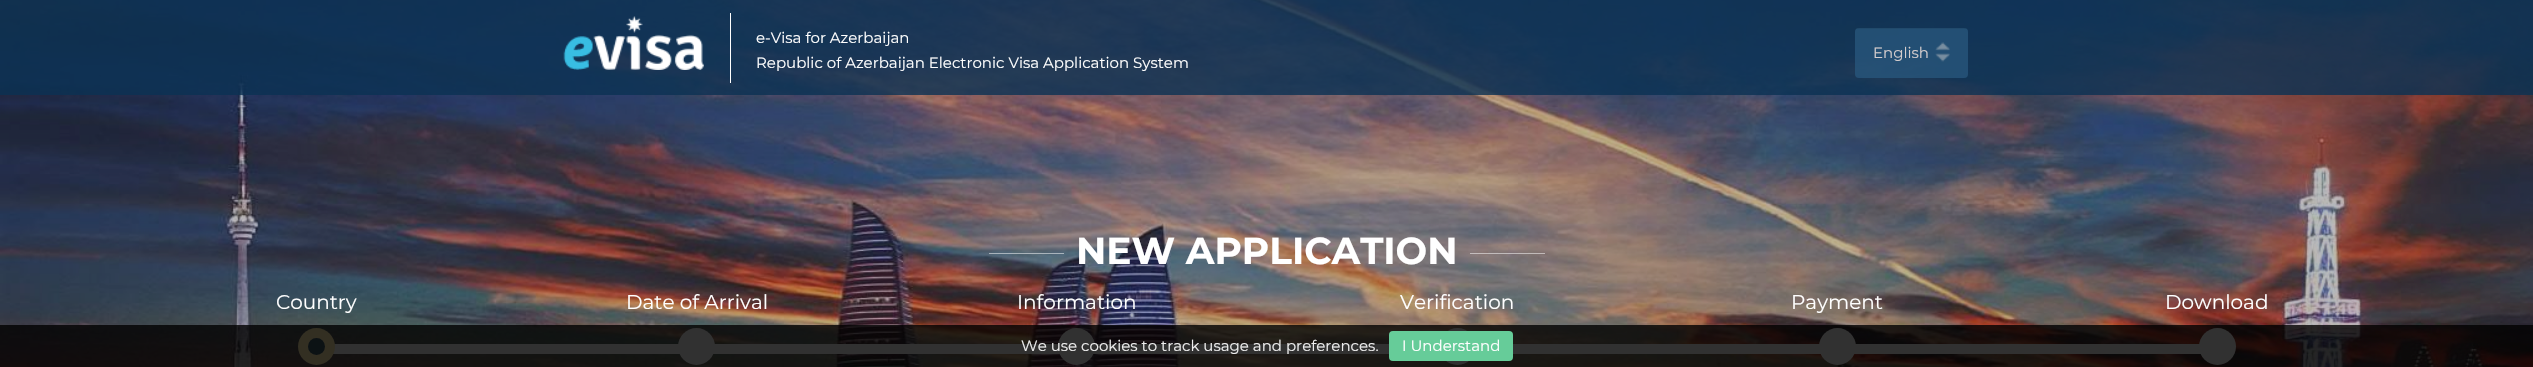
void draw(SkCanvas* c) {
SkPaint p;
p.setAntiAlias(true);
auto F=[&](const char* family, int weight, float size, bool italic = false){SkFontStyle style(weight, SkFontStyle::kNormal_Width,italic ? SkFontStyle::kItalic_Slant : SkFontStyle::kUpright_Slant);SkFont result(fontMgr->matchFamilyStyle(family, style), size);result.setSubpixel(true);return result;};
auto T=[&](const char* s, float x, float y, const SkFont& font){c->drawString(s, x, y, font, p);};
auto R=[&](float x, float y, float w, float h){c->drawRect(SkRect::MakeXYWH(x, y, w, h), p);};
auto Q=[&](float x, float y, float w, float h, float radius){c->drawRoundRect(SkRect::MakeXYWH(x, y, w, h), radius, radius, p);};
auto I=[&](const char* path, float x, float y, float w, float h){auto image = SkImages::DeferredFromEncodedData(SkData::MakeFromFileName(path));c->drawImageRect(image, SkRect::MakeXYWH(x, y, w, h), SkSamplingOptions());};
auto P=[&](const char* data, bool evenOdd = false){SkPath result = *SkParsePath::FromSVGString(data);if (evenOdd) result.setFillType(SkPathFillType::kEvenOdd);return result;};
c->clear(0xffffffff);
I("3.png",0,0,2533,367);
p.setColor(0xcc0a3152);
R(0,0,2533,95);
p.setColor(0xffffffff);
R(730,13,1,70);
I("1.png",563,16,141,54);
auto f1 = F("Montserrat",400,15);
T("e-Visa for Azerbaijan",756,43,f1);
T("Republic of Azerbaijan Electronic Visa Application System",756,68,f1);
p.setColor(0xcc27557b);
Q(1855,28,113,50,4);
I("2.png",1935,42,15,20);
c->save();
c->clipPath(P("M1859 28h105c2 0 4 2 4 4v42c0 2-2 4-4 4h-105c-2 0-4-2-4-4v-42c0-2 2-4 4-4z"),true);
p.setColor(0x12000000);
R(1855,28,113,1);
c->restore();
p.setColor(0xffd4cdcd);
T("English",1873,58,f1);
p.setColor(0x80ffffff);
R(989,253,75,1);
auto f2 = F("Montserrat",700,37.5);
p.setColor(0xffffffff);
T("NEW APPLICATION",1076,264,f2);
p.setColor(0x80ffffff);
R(1470,253,75,1);
auto f3 = F("Montserrat",400,20);
p.setColor(0xffffffff);
T("Country",276,309,f3);
p.setColor(0xfff5f5f5);
R(333,344,1868,10);
p.setColor(0xfffbe8aa);
c->drawCircle(316.5,346.5,18.5,p);
p.setColor(0xff3a5664);
c->drawCircle(316.5,346.5,8.5,p);
p.setColor(0xffffffff);
T("Date of Arrival",626,309,f3);
p.setColor(0xfff5f5f5);
c->drawCircle(696.5,346.5,18.5,p);
p.setColor(0xffffffff);
T("Information",1017,309,f3);
p.setColor(0xfff5f5f5);
c->drawCircle(1076.5,346.5,18.5,p);
p.setColor(0xffffffff);
T("Verification",1400,309,f3);
p.setColor(0xfff5f5f5);
c->drawCircle(1457.5,346.5,18.5,p);
p.setColor(0xffffffff);
T("Payment",1791,309,f3);
p.setColor(0xfff5f5f5);
c->drawCircle(1837.5,346.5,18.5,p);
p.setColor(0xffffffff);
T("Download",2165,309,f3);
p.setColor(0xfff5f5f5);
c->drawCircle(2217.5,346.5,18.5,p);
p.setColor(0xcc000000);
R(0,325,2533,42);
p.setColor(0xffeeeeee);
T("We use cookies to track usage and preferences.",1021,351,f1);
p.setColor(0xff66cc99);
Q(1389,331,124,30,4);
p.setColor(0xffffffff);
T("I Understand",1402,351,f1);
}
